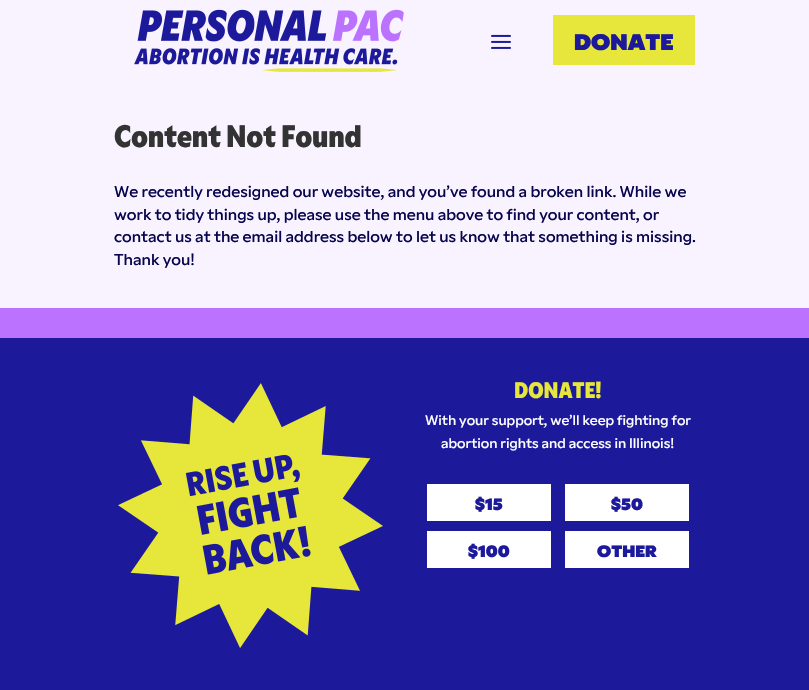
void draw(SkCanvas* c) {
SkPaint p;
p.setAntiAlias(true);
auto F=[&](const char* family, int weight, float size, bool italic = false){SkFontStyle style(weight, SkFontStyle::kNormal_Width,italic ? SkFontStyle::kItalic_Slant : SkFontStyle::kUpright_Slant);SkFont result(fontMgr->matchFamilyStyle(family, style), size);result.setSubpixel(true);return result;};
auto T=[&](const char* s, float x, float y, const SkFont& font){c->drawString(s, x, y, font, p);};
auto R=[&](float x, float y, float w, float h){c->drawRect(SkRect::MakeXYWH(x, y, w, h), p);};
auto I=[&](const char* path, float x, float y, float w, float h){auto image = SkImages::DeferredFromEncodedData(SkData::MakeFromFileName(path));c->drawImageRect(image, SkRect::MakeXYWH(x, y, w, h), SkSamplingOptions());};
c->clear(0xfff9f2ff);
I("1.png",134,9,270,63);
I("2.png",491,34,20,15);
p.setColor(0xffe7e63b);
R(553,15,142,50);
auto f1 = F("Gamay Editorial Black",900,21.75);
p.setColor(0xff1c1a9b);
T("DONATE",574,50,f1);
auto f2 = F("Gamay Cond",700,30);
p.setColor(0xff333333);
T("Content Not Found",114,147,f2);
auto f3 = F("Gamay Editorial",400,15.3);
p.setColor(0xff06054e);
T("We recently redesigned our website, and you’ve found a broken link. While we",114,197,f3);
T("work to tidy things up, please use the menu above to find your content, or",114,220,f3);
T("contact us at the email address below to let us know that something is missing.",114,242,f3);
T("Thank you!",114,265,f3);
p.setColor(0xff1c1a9b);
R(0,338,809,352);
p.setColor(0xffbb73ff);
R(0,308,809,30);
I("3.png",118,383,265,265);
auto f4 = F("Gamay Cond",700,21.75);
p.setColor(0xffe7e63b);
T("DONATE!",514,398,f4);
auto f5 = F("Gamay Editorial",400,13.4);
p.setColor(0xffffffff);
T("With your support, we’ll keep fighting for",425,425,f5);
T("abortion rights and access in Illinois!",441,448,f5);
R(427,484,124,37);
auto f6 = F("Gamay Editorial Black",900,16);
p.setColor(0xff1c1a9b);
T("$15",475,510,f6);
p.setColor(0xffffffff);
R(565,484,124,37);
p.setColor(0xff1c1a9b);
T("$50",611,510,f6);
p.setColor(0xffffffff);
R(427,531,124,37);
p.setColor(0xff1c1a9b);
T("$100",468,557,f6);
p.setColor(0xffffffff);
R(565,531,124,37);
p.setColor(0xff1c1a9b);
T("OTHER",597,557,f6);
}
